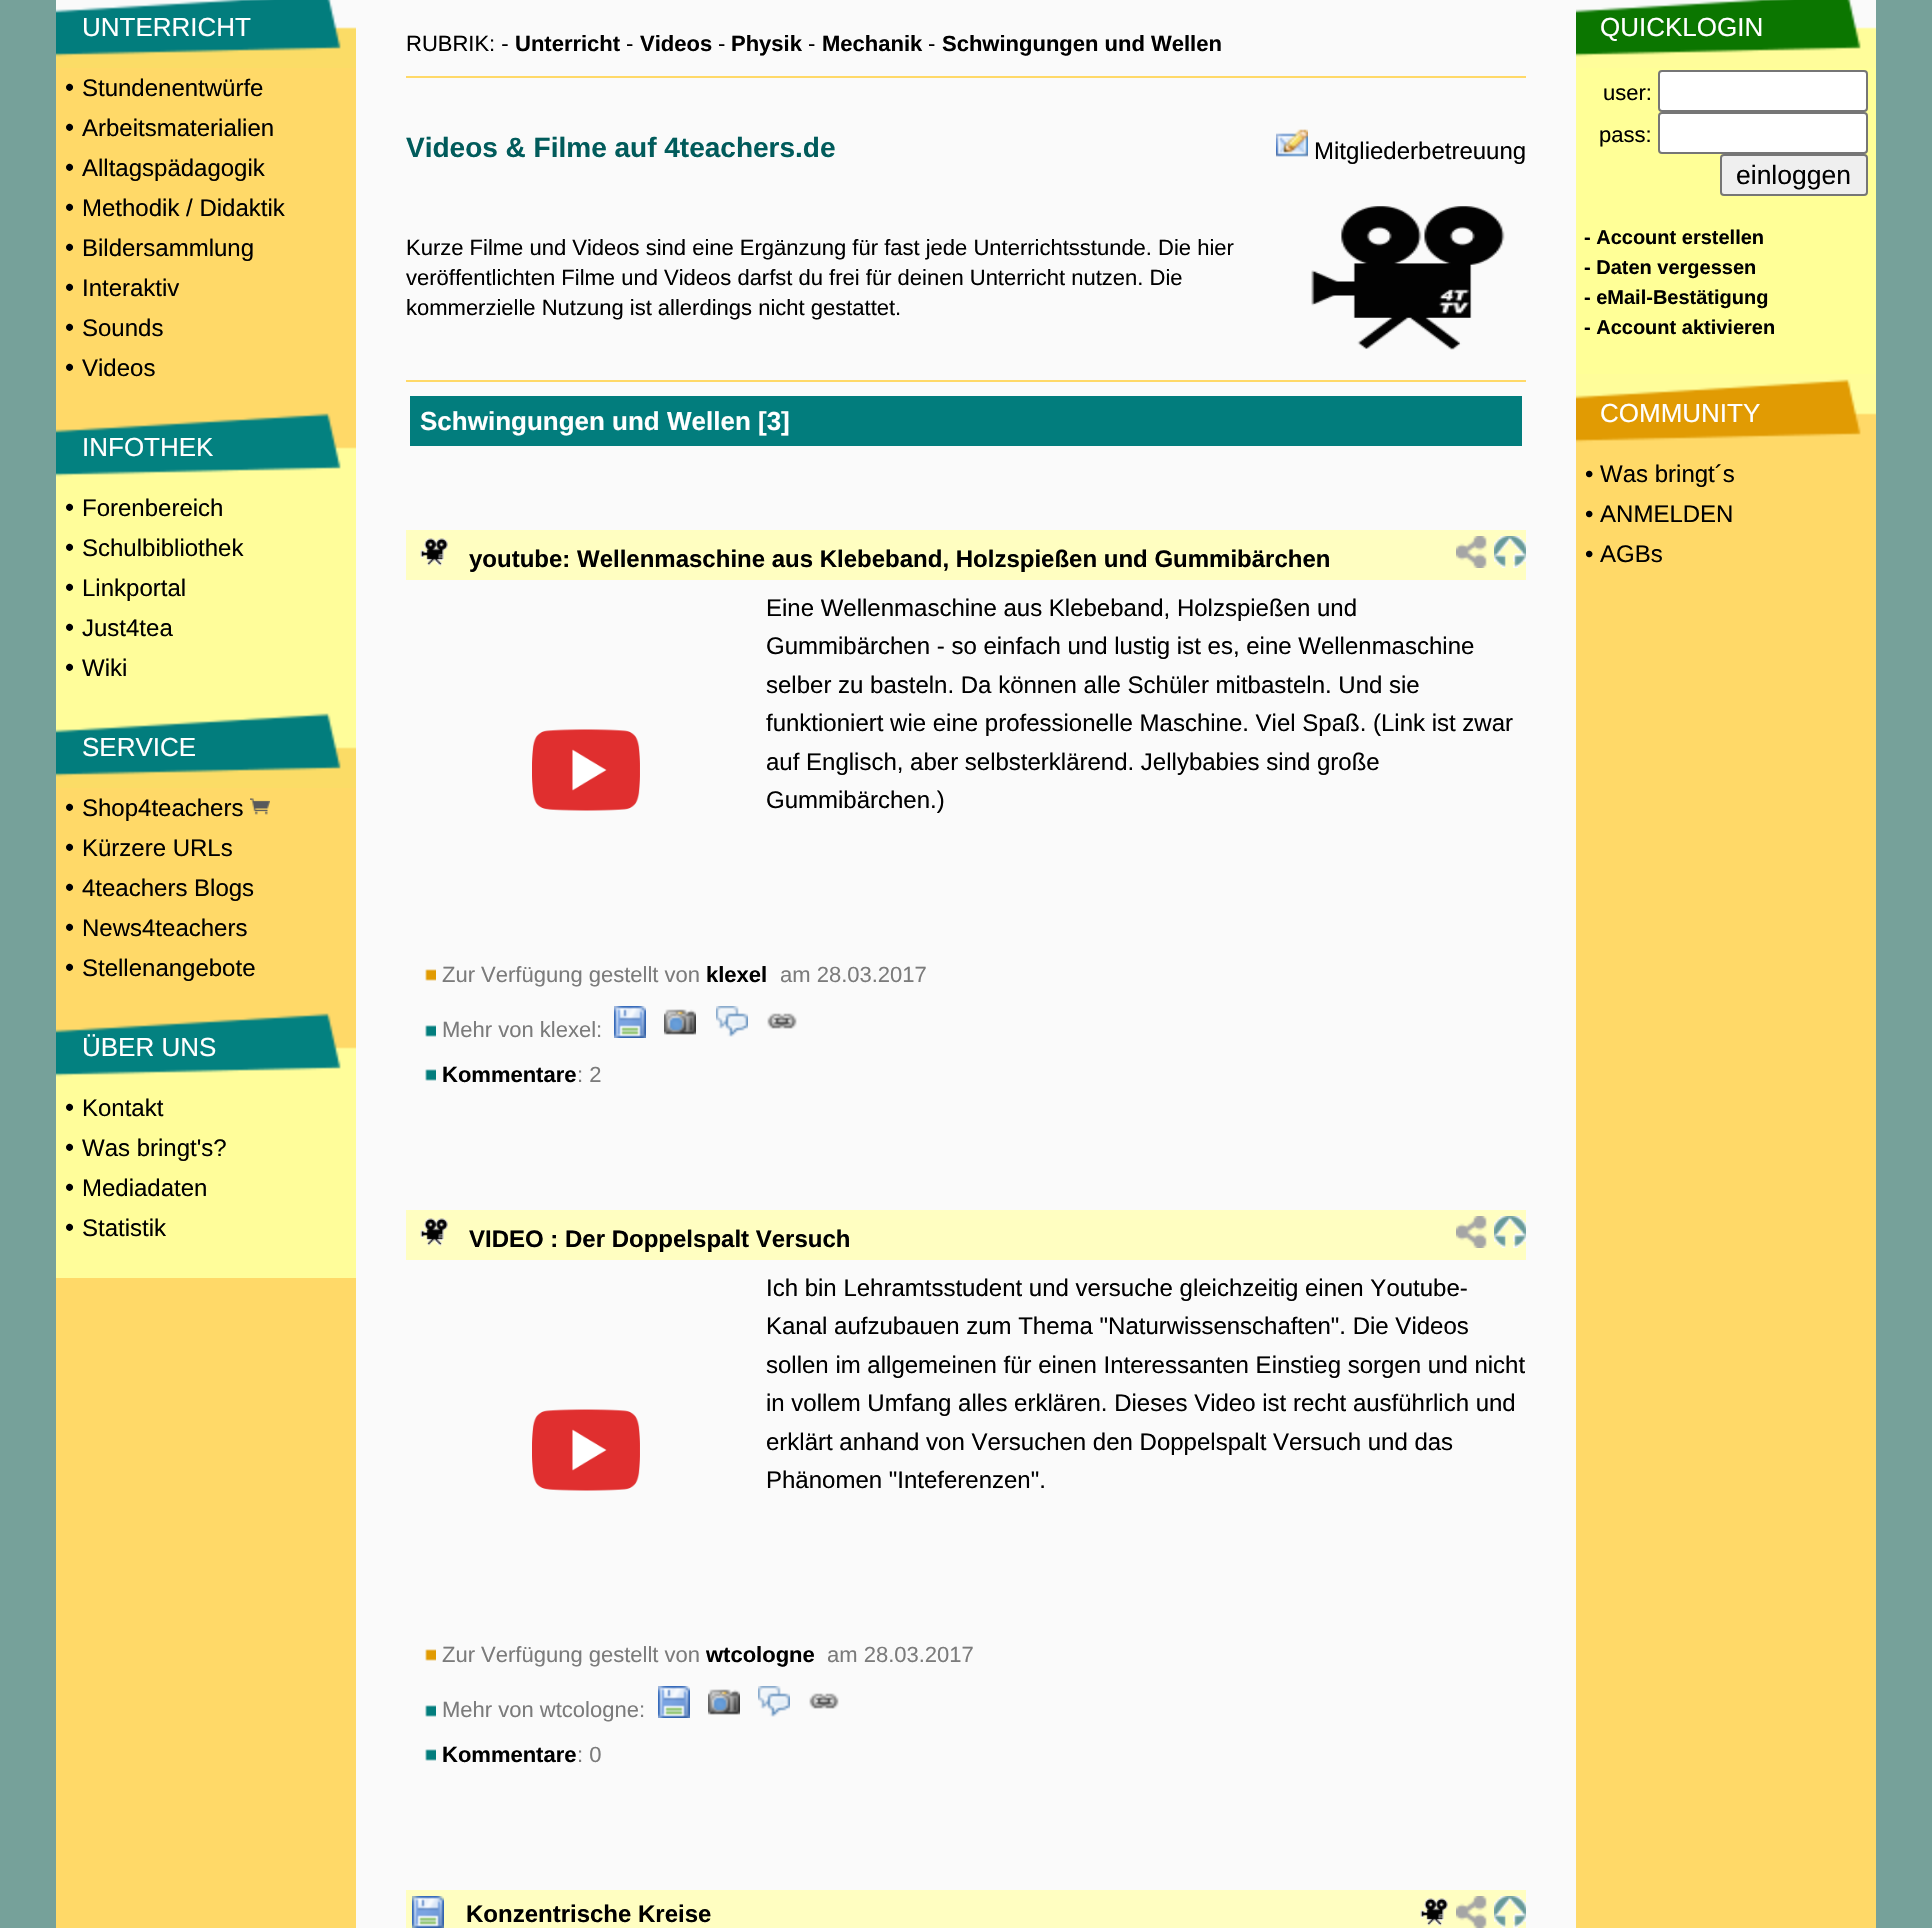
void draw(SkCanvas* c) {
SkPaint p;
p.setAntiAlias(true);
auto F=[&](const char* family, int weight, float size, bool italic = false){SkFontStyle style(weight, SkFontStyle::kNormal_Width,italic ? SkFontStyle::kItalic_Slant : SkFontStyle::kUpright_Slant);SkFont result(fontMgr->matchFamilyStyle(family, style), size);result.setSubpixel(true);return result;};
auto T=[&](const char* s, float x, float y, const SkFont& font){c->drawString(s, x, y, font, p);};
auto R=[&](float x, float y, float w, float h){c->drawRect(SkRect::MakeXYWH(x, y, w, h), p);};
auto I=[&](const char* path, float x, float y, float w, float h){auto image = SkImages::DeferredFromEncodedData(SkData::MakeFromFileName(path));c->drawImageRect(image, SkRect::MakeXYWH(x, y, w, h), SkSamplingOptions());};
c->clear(0xff76a19a);
I("1.png",356,0,1220,1928);
p.setColor(0xffffd968);
R(56,68,300,1860);
p.setColor(0xfffafafa);
R(56,0,300,29);
I("2.png",56,0,300,68);
auto f1 = F("Liberation Sans",400,26);
p.setColor(0xffffffff);
T("UNTERRICHT",82,36,f1);
p.setColor(0xff000000);
T("•",65,96,f1);
auto f2 = F("Liberation Sans",400,24);
T("Stundenentwürfe",82,96,f2);
T("•",65,136,f1);
T("Arbeitsmaterialien",82,136,f2);
T("•",65,176,f1);
T("Alltagspädagogik",82,176,f2);
T("•",65,216,f1);
T("Methodik / Didaktik",82,216,f2);
T("•",65,256,f1);
T("Bildersammlung",82,256,f2);
T("•",65,296,f1);
T("Interaktiv",82,296,f2);
T("•",65,336,f1);
T("Sounds",82,336,f2);
T("•",65,376,f1);
T("Videos",82,376,f2);
I("3.png",56,408,300,80);
p.setColor(0xffffffff);
T("INFOTHEK",82,456,f1);
p.setColor(0xfffffd9a);
R(56,488,300,220);
p.setColor(0xff000000);
T("•",65,516,f1);
T("Forenbereich",82,516,f2);
T("•",65,556,f1);
T("Schulbibliothek",82,556,f2);
T("•",65,596,f1);
T("Linkportal",82,596,f2);
T("•",65,636,f1);
T("Just4tea",82,636,f2);
T("•",65,676,f1);
T("Wiki",82,676,f2);
I("4.png",56,708,300,80);
p.setColor(0xffffffff);
T("SERVICE",82,756,f1);
p.setColor(0xff000000);
T("•",65,816,f1);
T("Shop4teachers",82,816,f2);
I("5.png",250,798,20,17);
T("•",65,856,f1);
T("Kürzere URLs",82,856,f2);
T("•",65,896,f1);
T("4teachers Blogs",82,896,f2);
T("•",65,936,f1);
T("News4teachers",82,936,f2);
T("•",65,976,f1);
T("Stellenangebote",82,976,f2);
I("6.png",56,1013,300,75);
p.setColor(0xffffffff);
T("ÜBER UNS",82,1056,f1);
p.setColor(0xfffffd9a);
R(56,1088,300,190);
p.setColor(0xff000000);
T("•",65,1116,f1);
T("Kontakt",82,1116,f2);
T("•",65,1156,f1);
T("Was bringt's?",82,1156,f2);
T("•",65,1196,f1);
T("Mediadaten",82,1196,f2);
T("•",65,1236,f1);
T("Statistik",82,1236,f2);
auto f3 = F("Liberation Sans",400,22);
T("RUBRIK: -",406,51,f3);
auto f4 = F("Liberation Sans",700,22);
T("Unterricht",515,51,f4);
T("-",626,51,f3);
T("Videos",640,51,f4);
T("-",718,51,f3);
T("Physik",731,51,f4);
T("-",808,51,f3);
T("Mechanik",822,51,f4);
T("-",928,51,f3);
T("Schwingungen und Wellen",942,51,f4);
p.setColor(0xffffd968);
R(406,76,1120,2);
auto f5 = F("Liberation Sans",700,28);
p.setColor(0xff015b5b);
T("Videos & Filme auf 4teachers.de",406,157,f5);
I("7.png",1276,129,32,28);
p.setColor(0xff000000);
T("Mitgliederbetreuung",1314,159,f2);
T("Kurze Filme und Videos sind eine Ergänzung für fast jede Unterrichtsstunde. Die hier",406,255,f3);
T("veröffentlichten Filme und Videos darfst du frei für deinen Unterricht nutzen. Die",406,285,f3);
T("kommerzielle Nutzung ist allerdings nicht gestattet.",406,315,f3);
I("8.png",1311,206,194,144);
p.setColor(0xffffd968);
R(406,380,1120,2);
p.setColor(0xff027d7d);
R(410,396,1112,50);
auto f6 = F("Liberation Sans",700,26);
p.setColor(0xffffffff);
T("Schwingungen und Wellen [3]",420,430,f6);
p.setColor(0xfffffec1);
R(406,530,1120,50);
I("9.png",420,538,28,28);
auto f7 = F("Liberation Sans",700,24);
p.setColor(0xff000000);
T("youtube: Wellenmaschine aus Klebeband, Holzspießen und Gummibärchen",469,567,f7);
I("10.png",1456,536,31,32);
I("11.png",1494,536,32,32);
I("12.png",532,729,108,82);
T("Eine Wellenmaschine aus Klebeband, Holzspießen und",766,616,f2);
T("Gummibärchen - so einfach und lustig ist es, eine Wellenmaschine",766,654,f2);
T("selber zu basteln. Da können alle Schüler mitbasteln. Und sie",766,693,f2);
T("funktioniert wie eine professionelle Maschine. Viel Spaß. (Link ist zwar",766,731,f2);
T("auf Englisch, aber selbsterklärend. Jellybabies sind große",766,770,f2);
T("Gummibärchen.)",766,808,f2);
I("13.png",425,969,11,12);
p.setColor(0xff7b7b7b);
T("Zur Verfügung gestellt von",442,982,f3);
p.setColor(0xff000000);
T("klexel",706,982,f4);
p.setColor(0xff7b7b7b);
T("am 28.03.2017",780,982,f3);
I("14.png",425,1025,11,12);
T("Mehr von klexel:",442,1037,f3);
I("15.png",614,1006,32,32);
I("16.png",664,1009,32,26);
I("17.png",716,1006,32,31);
I("18.png",767,1013,30,16);
I("14.png",425,1069,11,12);
p.setColor(0xff000000);
T("Kommentare",442,1082,f4);
p.setColor(0xff7b7b7b);
T(": 2",577,1082,f3);
p.setColor(0xfffffec1);
R(406,1210,1120,50);
I("9.png",420,1218,28,28);
p.setColor(0xff000000);
T("VIDEO : Der Doppelspalt Versuch",469,1247,f7);
I("10.png",1456,1216,31,32);
I("11.png",1494,1216,32,32);
I("19.png",532,1409,108,82);
T("Ich bin Lehramtsstudent und versuche gleichzeitig einen Youtube-",766,1296,f2);
T("Kanal aufzubauen zum Thema \"Naturwissenschaften\". Die Videos",766,1334,f2);
T("sollen im allgemeinen für einen Interessanten Einstieg sorgen und nicht",766,1373,f2);
T("in vollem Umfang alles erklären. Dieses Video ist recht ausführlich und",766,1411,f2);
T("erklärt anhand von Versuchen den Doppelspalt Versuch und das",766,1450,f2);
T("Phänomen \"Inteferenzen\".",766,1488,f2);
I("13.png",425,1649,11,12);
p.setColor(0xff7b7b7b);
T("Zur Verfügung gestellt von",442,1662,f3);
p.setColor(0xff000000);
T("wtcologne",706,1662,f4);
p.setColor(0xff7b7b7b);
T("am 28.03.2017",827,1662,f3);
I("14.png",425,1705,11,12);
T("Mehr von wtcologne:",442,1717,f3);
I("15.png",658,1686,32,32);
I("16.png",708,1689,32,26);
I("17.png",758,1686,32,31);
I("18.png",809,1693,30,16);
I("14.png",425,1749,11,12);
p.setColor(0xff000000);
T("Kommentare",442,1762,f4);
p.setColor(0xff7b7b7b);
T(": 0",577,1762,f3);
p.setColor(0xfffffec1);
R(406,1890,1120,38);
I("20.png",412,1896,32,32);
p.setColor(0xff000000);
T("Konzentrische Kreise",466,1922,f7);
I("9.png",1420,1898,28,28);
I("10.png",1456,1896,31,32);
I("11.png",1494,1896,32,32);
p.setColor(0xffffd968);
R(1576,454,300,1474);
p.setColor(0xfffafafa);
R(1576,0,300,29);
I("21.png",1576,0,300,68);
p.setColor(0xffffffff);
T("QUICKLOGIN",1600,36,f1);
p.setColor(0xffffff97);
R(1576,68,300,306);
p.setColor(0xff000000);
T("user:",1603,100,f3);
p.setColor(0xffffffff);
c->drawRoundRect(SkRect::MakeXYWH(1659,71,208,40),3,3,p);
p.setStroke(true);
p.setStrokeWidth(2);
p.setColor(0xff767676);
c->drawRoundRect(SkRect::MakeXYWH(1659,71,208,40),3,3,p);
p.setStroke(false);
p.setColor(0xff000000);
T("pass:",1599,142,f3);
p.setColor(0xffffffff);
c->drawRoundRect(SkRect::MakeXYWH(1659,113,208,40),3,3,p);
p.setStroke(true);
p.setColor(0xff767676);
c->drawRoundRect(SkRect::MakeXYWH(1659,113,208,40),3,3,p);
p.setStroke(false);
p.setColor(0xffefefef);
c->drawRoundRect(SkRect::MakeXYWH(1721,155,146,40),3,3,p);
p.setStroke(true);
p.setColor(0xff767676);
c->drawRoundRect(SkRect::MakeXYWH(1721,155,146,40),3,3,p);
auto f8 = F("Liberation Sans",400,26.5);
p.setStroke(false);
p.setColor(0xff000000);
T("einloggen",1736,184,f8);
auto f9 = F("Liberation Sans",700,20);
T("- Account erstellen",1584,244,f9);
T("- Daten vergessen",1584,274,f9);
T("- eMail-Bestätigung",1584,304,f9);
T("- Account aktivieren",1584,334,f9);
I("22.png",1576,374,300,80);
p.setColor(0xffffffff);
T("COMMUNITY",1600,422,f1);
p.setColor(0xff000000);
T("• Was bringt´s",1585,482,f2);
T("• ANMELDEN",1585,522,f2);
T("• AGBs",1585,562,f2);
}
